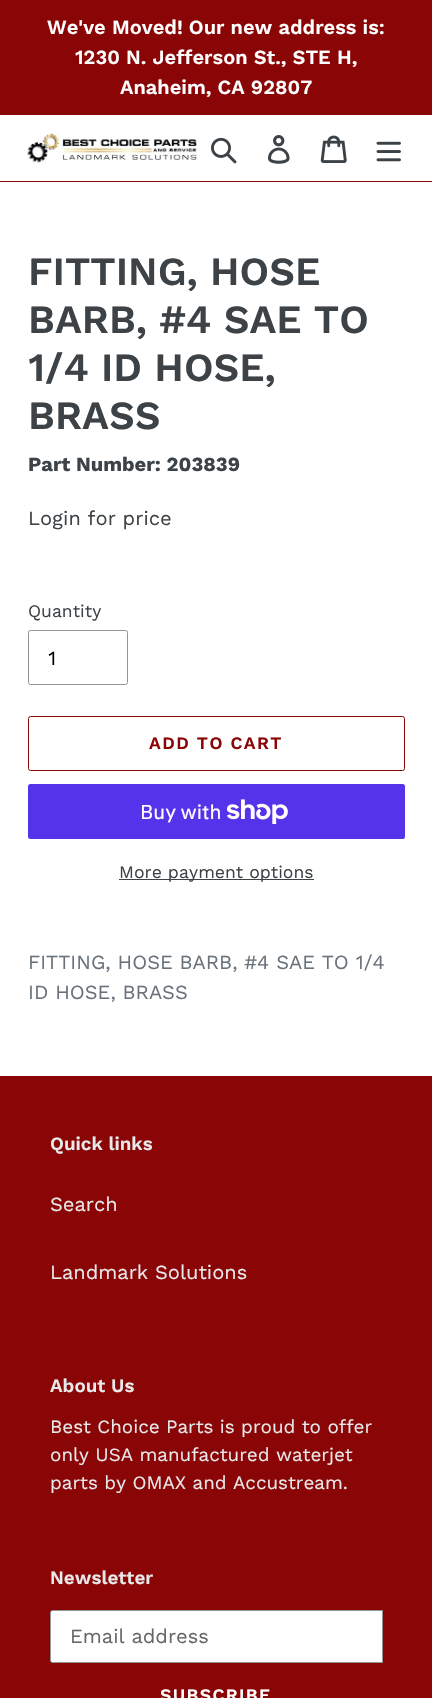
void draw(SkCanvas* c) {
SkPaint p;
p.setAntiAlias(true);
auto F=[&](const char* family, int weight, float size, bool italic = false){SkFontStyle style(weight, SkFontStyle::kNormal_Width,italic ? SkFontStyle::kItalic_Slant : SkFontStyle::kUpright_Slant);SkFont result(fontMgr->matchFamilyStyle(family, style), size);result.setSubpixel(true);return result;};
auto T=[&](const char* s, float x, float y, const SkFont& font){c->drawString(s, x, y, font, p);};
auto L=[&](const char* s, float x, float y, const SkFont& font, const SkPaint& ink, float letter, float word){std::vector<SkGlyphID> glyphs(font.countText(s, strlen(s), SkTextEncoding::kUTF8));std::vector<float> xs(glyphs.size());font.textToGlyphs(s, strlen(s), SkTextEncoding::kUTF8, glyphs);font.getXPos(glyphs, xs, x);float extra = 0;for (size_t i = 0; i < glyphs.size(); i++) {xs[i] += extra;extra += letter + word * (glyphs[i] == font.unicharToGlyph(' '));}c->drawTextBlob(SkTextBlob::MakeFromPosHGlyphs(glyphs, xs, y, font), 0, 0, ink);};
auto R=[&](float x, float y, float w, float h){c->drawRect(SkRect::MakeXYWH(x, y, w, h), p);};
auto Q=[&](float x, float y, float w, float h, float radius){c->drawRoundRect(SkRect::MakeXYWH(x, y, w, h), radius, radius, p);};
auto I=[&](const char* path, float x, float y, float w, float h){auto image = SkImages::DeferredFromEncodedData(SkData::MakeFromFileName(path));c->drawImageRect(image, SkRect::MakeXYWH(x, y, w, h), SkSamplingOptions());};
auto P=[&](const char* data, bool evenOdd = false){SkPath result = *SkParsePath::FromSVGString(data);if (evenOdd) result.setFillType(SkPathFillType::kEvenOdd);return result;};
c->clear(0xffffffff);
p.setColor(0xff8a0505);
R(0,0,432,115);
auto f1 = F("Work Sans",600,20);
p.setColor(0xffffffff);
T("We've Moved! Our new address is:",47,34,f1);
T("1230 N. Jefferson St., STE H,",75,64,f1);
T("Anaheim, CA 92807",120,94,f1);
p.setColor(0xff8a0505);
R(0,181,432,1);
I("1.png",27,133,170,30);
I("2.png",211,137,26,27);
I("3.png",267,135,23,29);
I("4.png",320,135,27,28);
I("5.png",376,141,25,21);
auto f2 = F("Work Sans",600,40);
p.setColor(0xff3d4246);
T("FITTING, HOSE",28,285,f2);
T("BARB, #4 SAE TO",28,333,f2);
T("1/4 ID HOSE,",28,381,f2);
T("BRASS",28,429,f2);
auto f3 = F("Work Sans",700,20);
T("Part Number: 203839",28,471,f3);
auto f4 = F("Work Sans",400,20);
T("Login for price",28,525,f4);
auto f5 = F("Work Sans",400,17.5);
T("Quantity",28,617,f5);
p.setStroke(true);
p.setStrokeWidth(1);
p.setColor(0xff949494);
c->drawRoundRect(SkRect::MakeXYWH(28.5,630.5,99,54),2,2,p);
p.setStroke(false);
p.setColor(0xff000000);
T("1",48,665,f4);
p.setStroke(true);
p.setColor(0xff8a0505);
c->drawRoundRect(SkRect::MakeXYWH(28.5,716.5,376,54),2,2,p);
auto f6 = F("Work Sans",600,17.5);
p.setStroke(false);
L("ADD TO CART",149,749,f6,p,1.4,0);
p.setColor(0xff5433eb);
Q(28,784,377,55,2.5);
auto f7 = F("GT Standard",400,20);
p.setColor(0xffffffff);
T("Buy with",140,819,f7);
I("6.png",226,799,62,25);
p.setColor(0xff3d4246);
R(119,879,195,1);
T("More payment options",119,878,f5);
p.setColor(0xff69727b);
T("FITTING, HOSE BARB, #4 SAE TO 1/4",28,969,f4);
T("ID HOSE, BRASS",28,999,f4);
p.setColor(0xff8a0505);
R(0,1076,432,622);
auto f8 = F("Work Sans",600,18.75);
p.setColor(0xffe8e9eb);
T("Quick links",50,1150,f8);
T("Search",50,1211,f4);
T("Landmark Solutions",50,1279,f4);
T("About Us",50,1392,f8);
auto f9 = F("Work Sans",400,18.75);
T("Best Choice Parts is proud to offer",50,1433,f9);
T("only USA manufactured waterjet",50,1461,f9);
T("parts by OMAX and Accustream.",50,1489,f9);
T("Newsletter",50,1584,f8);
p.setColor(0xffffffff);
c->drawPath(P("M52.5 1610.5h330v52h-330c-1 0-2-1-2-2v-48c0-1 1-2 2-2z"),p);
p.setStroke(true);
p.setColor(0xff949494);
c->drawPath(P("M52.5 1610.5h330v52h-330c-1 0-2-1-2-2v-48c0-1 1-2 2-2z"),p);
p.setStroke(false);
p.setColor(0xff666666);
T("Email address",70,1643,f4);
p.setColor(0xffffffff);
L("SUBSCRIBE",160,1701,f6,p,1.4,0);
}
